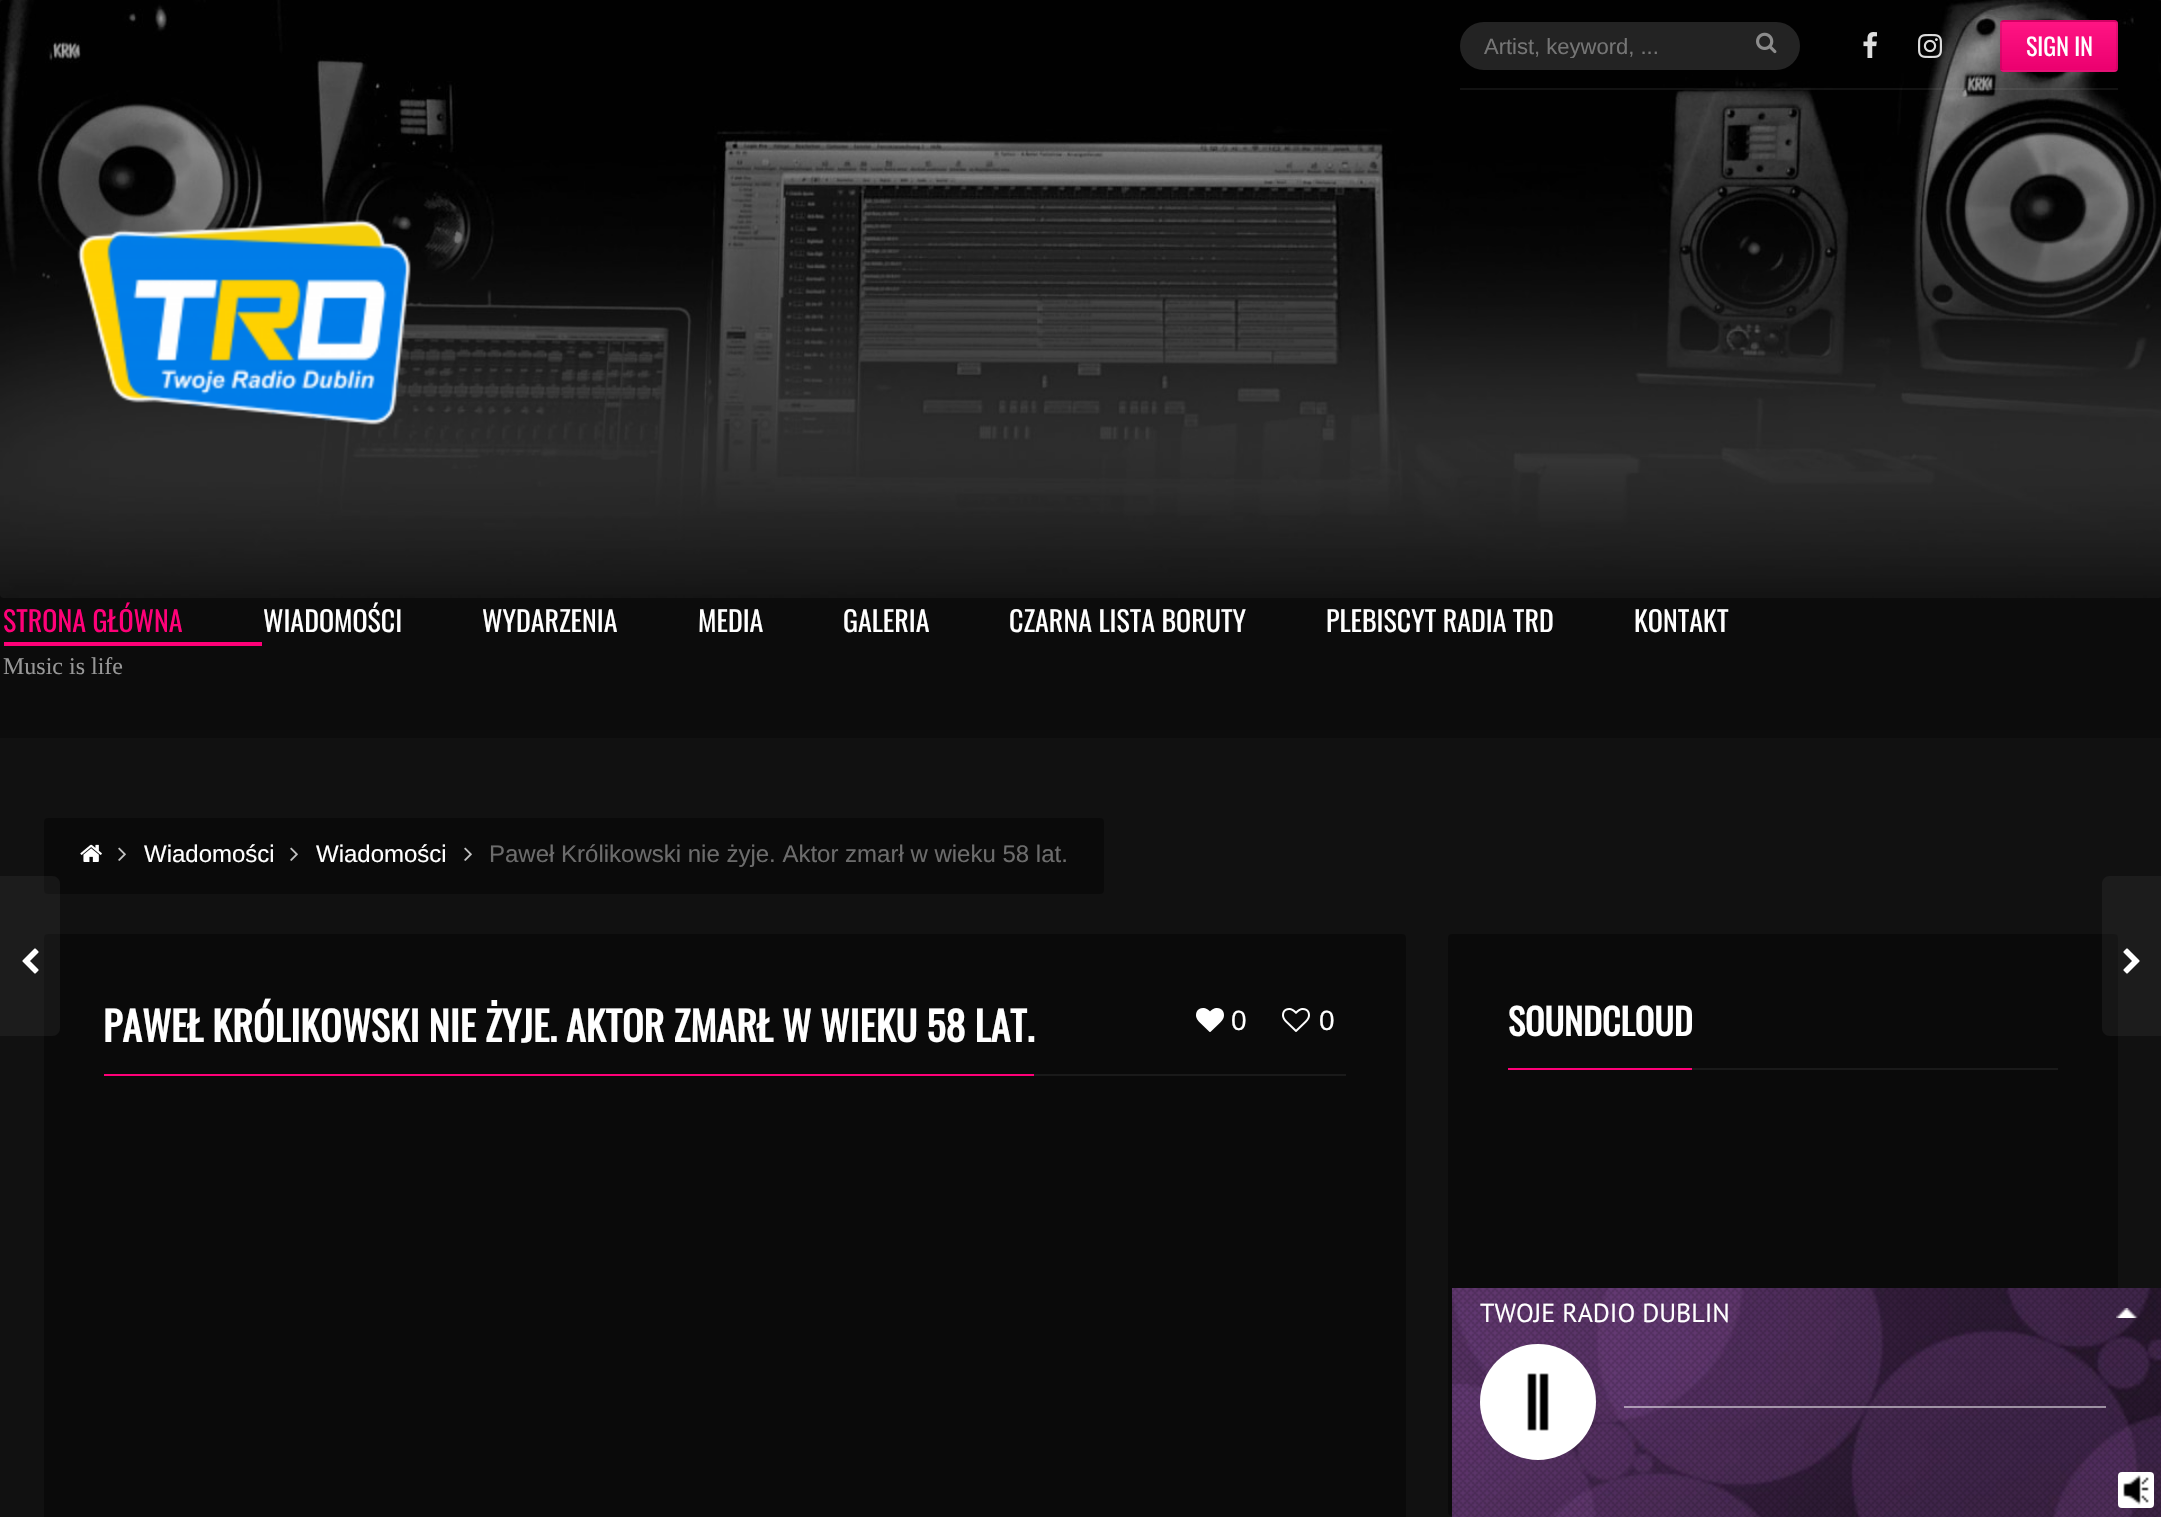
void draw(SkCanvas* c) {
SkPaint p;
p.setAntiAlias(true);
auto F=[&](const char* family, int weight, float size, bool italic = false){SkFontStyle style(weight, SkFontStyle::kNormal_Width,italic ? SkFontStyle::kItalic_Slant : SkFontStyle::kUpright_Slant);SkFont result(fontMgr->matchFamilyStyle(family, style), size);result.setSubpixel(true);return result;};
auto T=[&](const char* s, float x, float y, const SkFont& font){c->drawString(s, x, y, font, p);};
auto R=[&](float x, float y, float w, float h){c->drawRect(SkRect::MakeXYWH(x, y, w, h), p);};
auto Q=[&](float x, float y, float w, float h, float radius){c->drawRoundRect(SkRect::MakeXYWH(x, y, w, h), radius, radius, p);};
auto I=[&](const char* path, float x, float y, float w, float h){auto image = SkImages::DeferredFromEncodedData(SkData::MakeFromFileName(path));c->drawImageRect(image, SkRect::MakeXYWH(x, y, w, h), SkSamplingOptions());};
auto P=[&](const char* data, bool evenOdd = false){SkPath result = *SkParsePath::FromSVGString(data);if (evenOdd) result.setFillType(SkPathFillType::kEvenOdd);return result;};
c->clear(0xff111111);
p.setColor(0xff0c0c0c);
R(0,0,2161,738);
I("1.png",0,0,2161,598);
p.setColor(0x1aa7a7a7);
R(1460,88,658,2);
p.setColor(0xff232323);
Q(1460,22,340,48,24);
c->save();
c->clipRect(SkRect::MakeXYWH(1484,34,292,24));
auto f1 = F("Liberation Sans",400,22);
p.setColor(0xff757575);
T("Artist, keyword, ...",1484,54,f1);
c->restore();
I("2.png",1756,32,21,22);
I("3.png",1863,32,14,26);
I("4.png",1918,34,24,24);
p.setColor(0xffff0078);
Q(2000,20,118,52,4);
c->save();
c->clipPath(P("M2004 20h110c2 0 4 2 4 4v44c0 2-2 4-4 4h-110c-2 0-4-2-4-4v-44c0-2 2-4 4-4z"),true);
{
const SkColor colors[] = {0x14000000,0x14808080,0x14ffffff};
const float stops[] = {0,.5,1};
const SkPoint ends[] = {{2002,22}, {2002,-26}};
p.setShader(SkGradientShader::MakeLinear(ends, colors, stops, 3, SkTileMode::kClamp));
p.setAlpha(255);
}
R(2000,20,118,2);
c->restore();
{
const SkColor colors[] = {0x14000000,0x14808080,0x14ffffff};
const float stops[] = {0,.5,1};
const SkPoint ends[] = {{2002,70}, {2002,22}};
p.setShader(SkGradientShader::MakeLinear(ends, colors, stops, 3, SkTileMode::kClamp));
p.setAlpha(255);
}
R(2000,22,118,48);
c->save();
c->clipPath(P("M2004 20h110c2 0 4 2 4 4v44c0 2-2 4-4 4h-110c-2 0-4-2-4-4v-44c0-2 2-4 4-4z"),true);
{
const SkColor colors[] = {0x14000000,0x14808080,0x14ffffff};
const float stops[] = {0,.5,1};
const SkPoint ends[] = {{2002,118}, {2002,70}};
p.setShader(SkGradientShader::MakeLinear(ends, colors, stops, 3, SkTileMode::kClamp));
p.setAlpha(255);
}
R(2000,70,118,2);
c->restore();
p.setStroke(true);
p.setStrokeWidth(2);
p.setShader(nullptr);
p.setColor(0x1a000000);
c->drawRoundRect(SkRect::MakeXYWH(2001,21,116,50),3,3,p);
auto f2 = F("Oswald",400,24);
p.setStroke(false);
p.setColor(0xffffffff);
T("SIGN IN",2026,56,f2);
I("5.png",77,219,334,206);
auto f3 = F("Oswald",400,28);
p.setColor(0xffff0078);
T("STRONA GŁÓWNA",3,632,f3);
auto f4 = F("Liberation Serif",400,24);
p.setColor(0xff979797);
T("Music is life",3,674,f4);
p.setColor(0xffffffff);
T("WIADOMOŚCI",263,632,f3);
T("WYDARZENIA",482,632,f3);
T("MEDIA",698,632,f3);
T("GALERIA",843,632,f3);
T("CZARNA LISTA BORUTY",1009,632,f3);
T("PLEBISCYT RADIA TRD",1326,632,f3);
T("KONTAKT",1634,632,f3);
p.setColor(0xffff0078);
R(4,642,258,4);
p.setColor(0xff0a0a0a);
Q(44,818,1060,76,4);
I("6.png",80,844,22,18);
I("7.png",118,847,8,14);
auto f5 = F("Liberation Sans",400,24);
p.setColor(0xffffffff);
T("Wiadomości",144,862,f5);
I("7.png",290,847,8,14);
T("Wiadomości",316,862,f5);
I("7.png",464,847,8,14);
p.setColor(0xff6c6c6c);
T("Paweł Królikowski nie żyje. Aktor zmarł w wieku 58 lat.",489,862,f5);
p.setColor(0xff0a0a0a);
Q(44,934,1362,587,4);
p.setColor(0x12a7a7a7);
c->drawPath(P("M-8 876h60c4.5 0 8 3.5 8 8v144c0 4.5-3.5 8-8 8h-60z"),p);
I("8.png",22,948,17,26);
p.setColor(0xff0a0a0a);
Q(1448,934,670,582,4);
p.setColor(0x12a7a7a7);
c->drawPath(P("M2110 876h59v160h-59c-4.5 0-8-3.5-8-8v-144c0-4.5 3.5-8 8-8z"),p);
I("9.png",2123,948,17,26);
p.setColor(0xffff0078);
R(104,1074,930,2);
auto f6 = F("Oswald",700,40);
p.setColor(0xffffffff);
T("PAWEŁ KRÓLIKOWSKI NIE ŻYJE. AKTOR ZMARŁ W WIEKU 58 LAT.",103,1042,f6);
I("10.png",1196,1008,28,24);
auto f7 = F("Liberation Sans",400,28);
T("0",1231,1030,f7);
I("11.png",1282,1008,28,24);
T("0",1319,1030,f7);
p.setColor(0xff1a1a1a);
R(1034,1074,312,2);
p.setColor(0xffff0078);
R(1508,1068,184,2);
auto f8 = F("Oswald",700,36);
p.setColor(0xffffffff);
T("SOUNDCLOUD",1508,1036,f8);
p.setColor(0xff1a1a1a);
R(1692,1068,366,2);
I("12.png",1452,1288,709,229);
I("13.png",1452,1288,709,229);
auto f9 = F("PT Sans",400,26);
p.setColor(0xffffffff);
T("TWOJE RADIO DUBLIN",1480,1322,f9);
I("14.png",2116,1308,22,10);
c->drawCircle(1538,1402,58,p);
I("15.png",1527,1373,22,58);
Q(2118,1472,36,36,4);
I("16.png",2123,1475,26,30);
p.setColor(0x80ffffff);
R(1624,1406,482,2);
}
